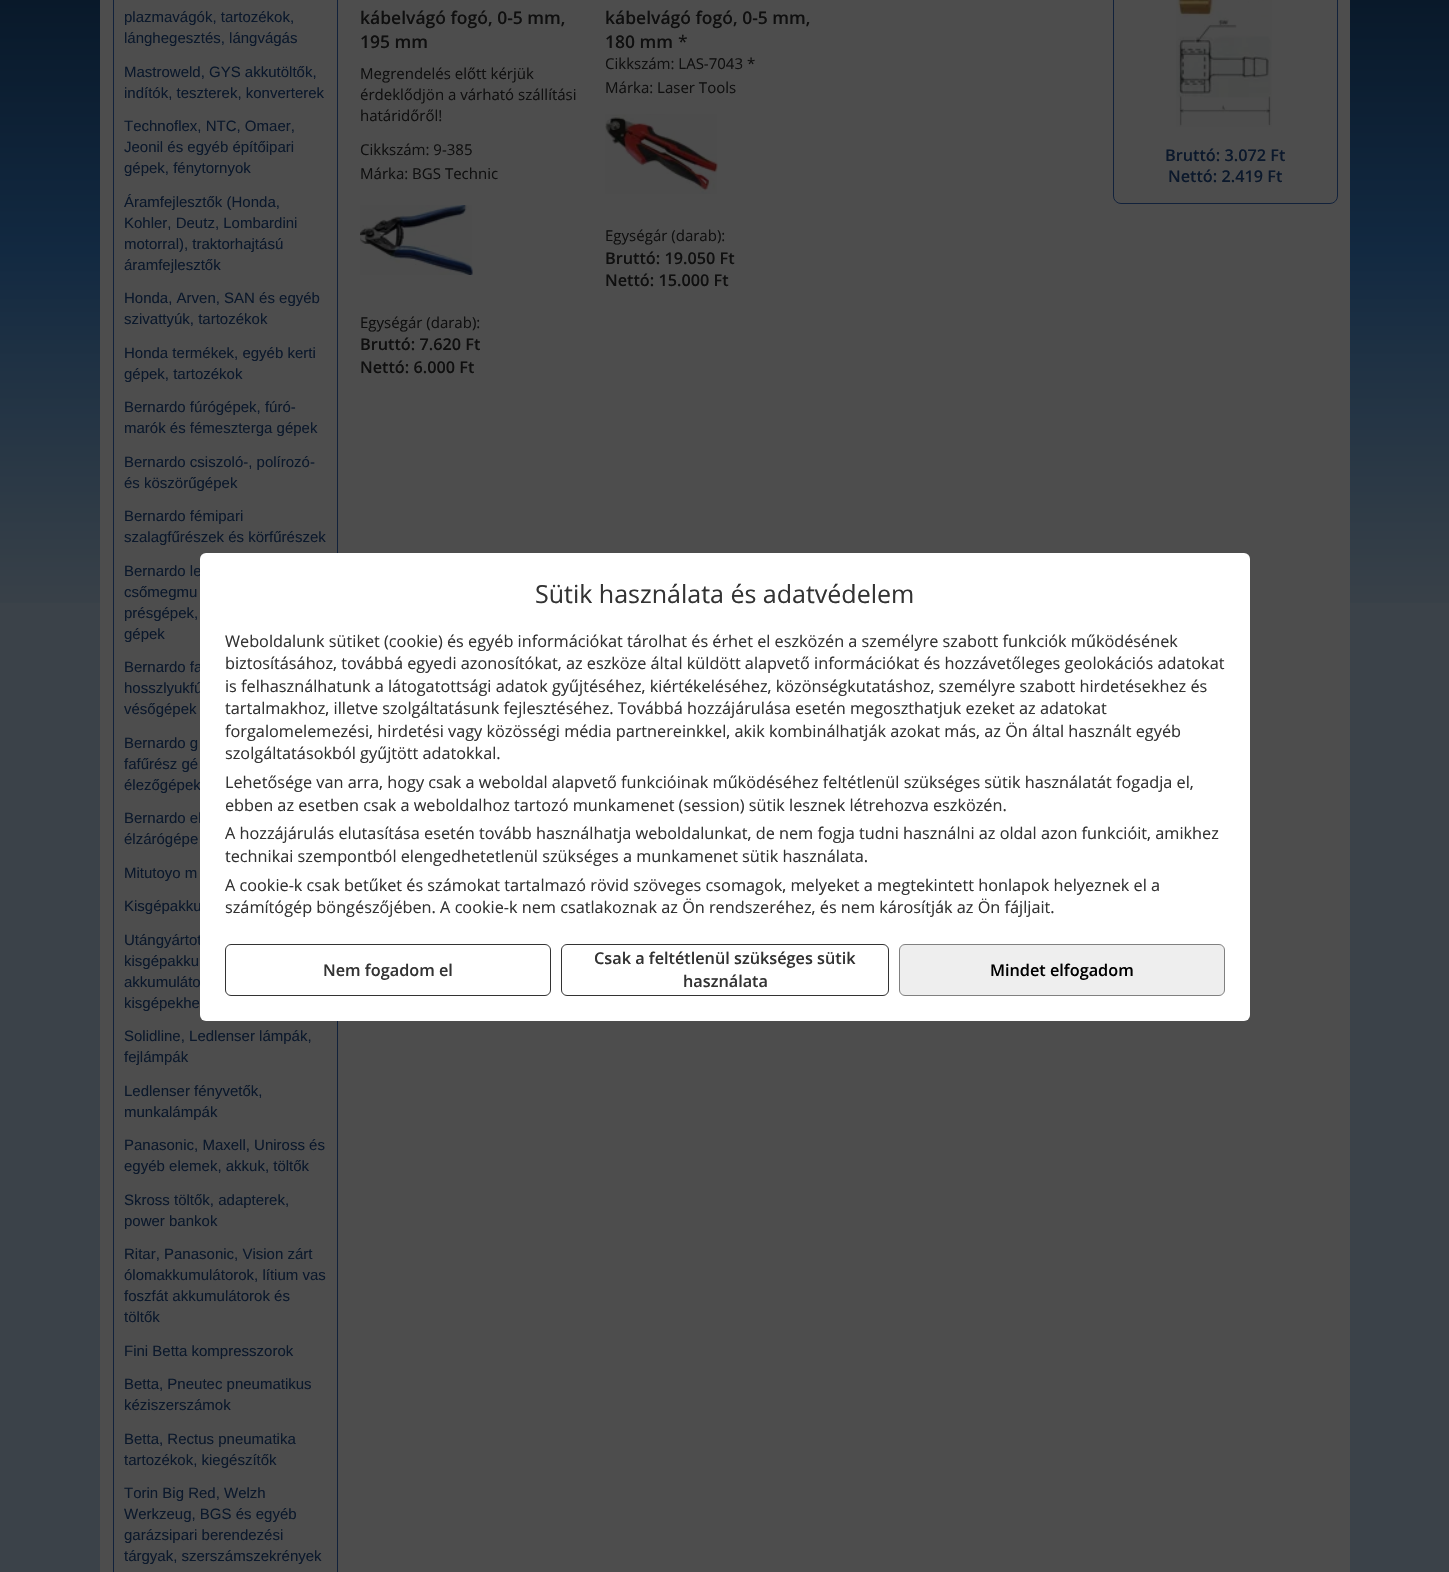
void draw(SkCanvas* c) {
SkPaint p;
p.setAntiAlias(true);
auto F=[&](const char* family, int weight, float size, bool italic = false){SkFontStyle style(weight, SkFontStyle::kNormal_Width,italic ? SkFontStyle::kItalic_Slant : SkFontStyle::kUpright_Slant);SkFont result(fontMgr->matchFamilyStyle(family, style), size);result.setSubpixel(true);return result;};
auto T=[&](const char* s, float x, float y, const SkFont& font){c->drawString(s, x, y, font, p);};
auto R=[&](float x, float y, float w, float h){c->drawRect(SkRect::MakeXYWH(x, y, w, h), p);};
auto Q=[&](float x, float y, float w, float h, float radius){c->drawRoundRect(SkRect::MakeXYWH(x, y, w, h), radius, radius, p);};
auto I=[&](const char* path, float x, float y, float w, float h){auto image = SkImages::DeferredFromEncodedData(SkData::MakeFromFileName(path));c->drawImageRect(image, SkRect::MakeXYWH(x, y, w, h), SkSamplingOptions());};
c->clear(0xff3b4249);
{
const SkColor colors[] = {0xff3b4249,0xff2d3a46,0xff203244,0xff122941,0xff09192a};
const float stops[] = {0,.2,.4,.6,1};
const SkPoint ends[] = {{725,625}, {725,0}};
p.setShader(SkGradientShader::MakeLinear(ends, colors, stops, 5, SkTileMode::kClamp));
p.setAlpha(255);
}
R(0,0,1449,603);
p.setShader(nullptr);
p.setColor(0xff4d4d4d);
R(100,0,1250,1572);
p.setStroke(true);
p.setStrokeWidth(1);
p.setColor(0xff11213b);
c->drawRect(SkRect::MakeXYWH(113.5,-.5,224,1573),p);
auto f1 = F("Liberation Sans",400,15);
p.setStroke(false);
p.setColor(0xff0b182b);
T("plazmavágók, tartozékok,",124,22,f1);
T("lánghegesztés, lángvágás",124,43,f1);
T("Mastroweld, GYS akkutöltők,",124,77,f1);
T("indítók, teszterek, konverterek",124,98,f1);
T("Technoflex, NTC, Omaer,",124,131,f1);
T("Jeonil és egyéb építőipari",124,152,f1);
T("gépek, fénytornyok",124,173,f1);
T("Áramfejlesztők (Honda,",124,207,f1);
T("Kohler, Deutz, Lombardini",124,228,f1);
T("motorral), traktorhajtású",124,249,f1);
T("áramfejlesztők",124,270,f1);
T("Honda, Arven, SAN és egyéb",124,303,f1);
T("szivattyúk, tartozékok",124,324,f1);
T("Honda termékek, egyéb kerti",124,358,f1);
T("gépek, tartozékok",124,379,f1);
T("Bernardo fúrógépek, fúró-",124,412,f1);
T("marók és fémeszterga gépek",124,433,f1);
T("Bernardo csiszoló-, polírozó-",124,467,f1);
T("és köszörűgépek",124,488,f1);
T("Bernardo fémipari",124,521,f1);
T("szalagfűrészek és körfűrészek",124,542,f1);
T("Bernardo le",124,576,f1);
T("csőmegmu",124,597,f1);
T("présgépek,",124,618,f1);
T("gépek",124,639,f1);
T("Bernardo fa",124,672,f1);
T("hosszlyukfú",124,693,f1);
T("vésőgépek",124,714,f1);
T("Bernardo g",124,748,f1);
T("fafűrész gé",124,769,f1);
T("élezőgépek",124,790,f1);
T("Bernardo el",124,823,f1);
T("élzárógépe",124,844,f1);
T("Mitutoyo m",124,878,f1);
T("Kisgépakku",124,911,f1);
T("Utángyártot",124,945,f1);
T("kisgépakku",124,966,f1);
T("akkumuláto",124,987,f1);
T("kisgépekhe",124,1008,f1);
T("Solidline, Ledlenser lámpák,",124,1041,f1);
T("fejlámpák",124,1062,f1);
T("Ledlenser fényvetők,",124,1096,f1);
T("munkalámpák",124,1117,f1);
T("Panasonic, Maxell, Uniross és",124,1150,f1);
T("egyéb elemek, akkuk, töltők",124,1171,f1);
T("Skross töltők, adapterek,",124,1205,f1);
T("power bankok",124,1226,f1);
T("Ritar, Panasonic, Vision zárt",124,1259,f1);
T("ólomakkumulátorok, lítium vas",124,1280,f1);
T("foszfát akkumulátorok és",124,1301,f1);
T("töltők",124,1322,f1);
T("Fini Betta kompresszorok",124,1356,f1);
T("Betta, Pneutec pneumatikus",124,1389,f1);
T("kéziszerszámok",124,1410,f1);
T("Betta, Rectus pneumatika",124,1444,f1);
T("tartozékok, kiegészítők",124,1465,f1);
T("Torin Big Red, Welzh",124,1498,f1);
T("Werkzeug, BGS és egyéb",124,1519,f1);
T("garázsipari berendezési",124,1540,f1);
T("tárgyak, szerszámszekrények",124,1561,f1);
auto f2 = F("Open Sans",600,17.5);
p.setColor(0xff0f0f0f);
T("kábelvágó fogó, 0-5 mm,",360,24,f2);
T("195 mm",360,48,f2);
auto f3 = F("Open Sans",400,15);
T("Megrendelés előtt kérjük",360,79,f3);
T("érdeklődjön a várható szállítási",360,100,f3);
T("határidőről!",360,121,f3);
T("Cikkszám: 9-385",360,155,f3);
T("Márka: BGS Technic",360,179,f3);
I("1.png",360,205,113,70);
T("Egységár (darab):",360,328,f3);
auto f4 = F("Open Sans",600,16.25);
T("Bruttó: 7.620 Ft",360,350,f4);
T("Nettó: 6.000 Ft",360,373,f4);
T("kábelvágó fogó, 0-5 mm,",605,24,f2);
T("180 mm",605,48,f2);
auto f5 = F("Open Sans",400,17.5);
T("*",678,48,f5);
T("Cikkszám: LAS-7043 *",605,69,f3);
T("Márka: Laser Tools",605,93,f3);
I("2.png",605,114,113,80);
T("Egységár (darab):",605,241,f3);
T("Bruttó: 19.050 Ft",605,264,f4);
T("Nettó: 15.000 Ft",605,286,f4);
p.setStroke(true);
p.setColor(0xff11213b);
c->drawRoundRect(SkRect::MakeXYWH(1113.5,-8.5,224,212),7.5,7.5,p);
I("3.png",1176,0,96,127);
p.setStroke(false);
p.setColor(0xff0b182b);
T("Bruttó: 3.072 Ft",1165,161,f4);
T("Nettó: 2.419 Ft",1168,182,f4);
p.setColor(0xffffffff);
Q(200,553,1050,468,6);
auto f6 = F("Open Sans",400,25);
p.setColor(0xff333333);
T("Sütik használata és adatvédelem",535,603,f6);
auto f7 = F("Open Sans",400,16.25);
T("Weboldalunk sütiket (cookie) és egyéb információkat tárolhat és érhet el eszközén a személyre szabott funkciók működésének",225,647,f7);
T("biztosításához, továbbá egyedi azonosítókat, az eszköze által küldött alapvető információkat és hozzávetőleges geolokációs adatokat",225,669,f7);
T("is felhasználhatunk a látogatottsági adatok gyűjtéséhez, kiértékeléséhez, közönségkutatáshoz, személyre szabott hirdetésekhez és",225,692,f7);
T("tartalmakhoz, illetve szolgáltatásunk fejlesztéséhez. Továbbá hozzájárulása esetén megoszthatjuk ezeket az adatokat",225,714,f7);
T("forgalomelemezési, hirdetési vagy közösségi média partnereinkkel, akik kombinálhatják azokat más, az Ön által használt egyéb",225,737,f7);
T("szolgáltatásokból gyűjtött adatokkal.",225,759,f7);
T("Lehetősége van arra, hogy csak a weboldal alapvető funkcióinak működéséhez feltétlenül szükséges sütik használatát fogadja el,",225,788,f7);
T("ebben az esetben csak a weboldalhoz tartozó munkamenet (session) sütik lesznek létrehozva eszközén.",225,811,f7);
T("A hozzájárulás elutasítása esetén tovább használhatja weboldalunkat, de nem fogja tudni használni az oldal azon funkcióit, amikhez",225,839,f7);
T("technikai szempontból elengedhetetlenül szükséges a munkamenet sütik használata.",225,862,f7);
T("A cookie-k csak betűket és számokat tartalmazó rövid szöveges csomagok, melyeket a megtekintett honlapok helyeznek el a",225,891,f7);
T("számítógép böngészőjében. A cookie-k nem csatlakoznak az Ön rendszeréhez, és nem károsítják az Ön fájljait.",225,913,f7);
p.setStroke(true);
c->drawRoundRect(SkRect::MakeXYWH(225.5,944.5,325,51),5.5,5.5,p);
p.setStroke(false);
T("Nem fogadom el",323,976,f4);
p.setStroke(true);
c->drawRoundRect(SkRect::MakeXYWH(561.5,944.5,327,51),5.5,5.5,p);
p.setStroke(false);
T("Csak a feltétlenül szükséges sütik",594,964,f4);
T("használata",683,987,f4);
p.setColor(0xffeeeeee);
c->drawRoundRect(SkRect::MakeXYWH(899.5,944.5,325,51),5.5,5.5,p);
p.setStroke(true);
p.setColor(0xff808080);
c->drawRoundRect(SkRect::MakeXYWH(899.5,944.5,325,51),5.5,5.5,p);
p.setStroke(false);
p.setColor(0xff000000);
T("Mindet elfogadom",990,976,f4);
}
